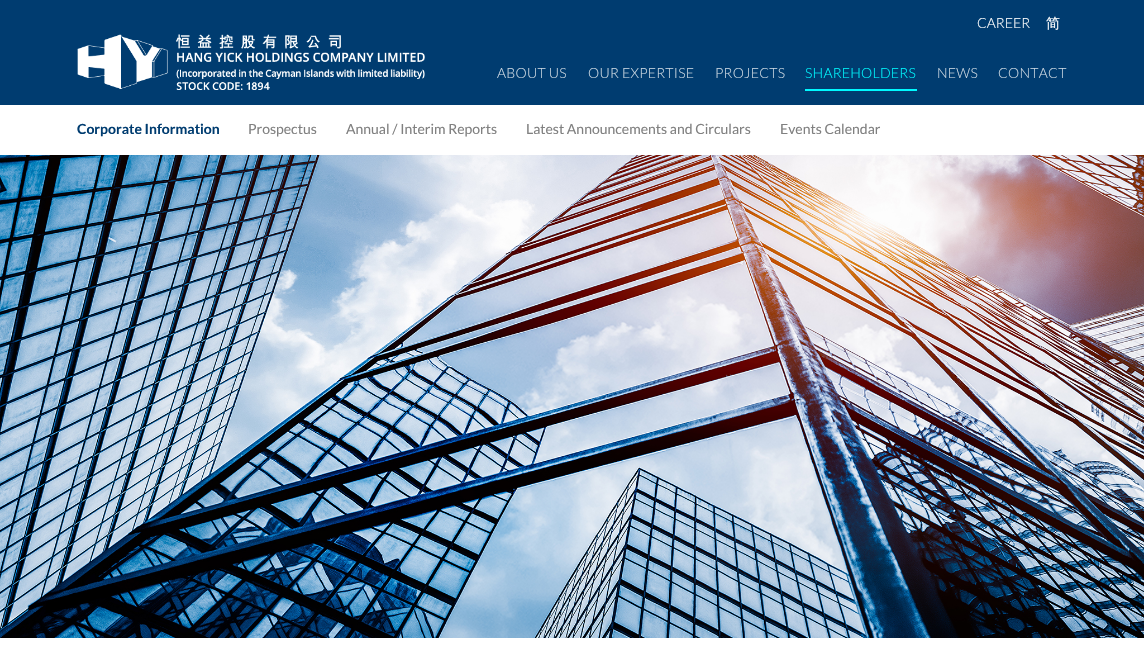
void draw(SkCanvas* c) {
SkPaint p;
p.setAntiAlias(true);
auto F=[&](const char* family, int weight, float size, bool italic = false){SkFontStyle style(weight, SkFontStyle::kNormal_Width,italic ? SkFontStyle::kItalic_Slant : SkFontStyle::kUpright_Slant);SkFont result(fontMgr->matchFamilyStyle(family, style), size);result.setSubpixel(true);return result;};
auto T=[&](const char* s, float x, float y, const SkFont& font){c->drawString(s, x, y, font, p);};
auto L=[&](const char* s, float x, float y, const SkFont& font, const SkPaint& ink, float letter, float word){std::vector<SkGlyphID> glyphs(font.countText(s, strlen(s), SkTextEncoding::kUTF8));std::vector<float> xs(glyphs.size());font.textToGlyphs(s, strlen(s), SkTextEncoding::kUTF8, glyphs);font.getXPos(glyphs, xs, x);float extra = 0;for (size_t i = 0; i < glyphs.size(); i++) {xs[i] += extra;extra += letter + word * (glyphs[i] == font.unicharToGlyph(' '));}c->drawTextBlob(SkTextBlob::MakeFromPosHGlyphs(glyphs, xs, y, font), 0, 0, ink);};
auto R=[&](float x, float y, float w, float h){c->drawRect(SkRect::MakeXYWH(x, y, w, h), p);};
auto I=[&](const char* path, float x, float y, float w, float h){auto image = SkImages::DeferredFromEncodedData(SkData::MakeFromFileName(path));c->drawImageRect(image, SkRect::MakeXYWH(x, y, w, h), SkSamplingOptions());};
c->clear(0xff003c70);
auto f1 = F("Lato",300,14);
p.setColor(0xffffffff);
T("CAREER",977,28,f1);
auto f2 = F("WenQuanYi Zen Hei",500,14);
T("简",1046,28,f2);
I("1.png",77,34,348,56);
p.setColor(0xff00f9ff);
R(805,89,112,2);
L("SHAREHOLDERS",805,78,f1,p,.25,0);
p.setColor(0xffffffff);
R(0,105,1144,50);
auto f3 = F("Lato",700,14);
p.setColor(0xff003c70);
T("Corporate Information",77,134,f3);
auto f4 = F("Lato",400,14);
p.setColor(0xff808080);
T("Prospectus",248,134,f4);
T("Annual / Interim Reports",346,134,f4);
T("Latest Announcements and Circulars",526,134,f4);
T("Events Calendar",780,134,f4);
p.setColor(0xffccd8e2);
L("ABOUT US",497,78,f1,p,.25,0);
L("OUR EXPERTISE",588,78,f1,p,.25,0);
L("PROJECTS",715,78,f1,p,.25,0);
L("NEWS",937,78,f1,p,.25,0);
L("CONTACT",998,78,f1,p,.25,0);
I("2.png",0,155,1144,483);
p.setColor(0xffffffff);
R(0,638,1144,19);
}
